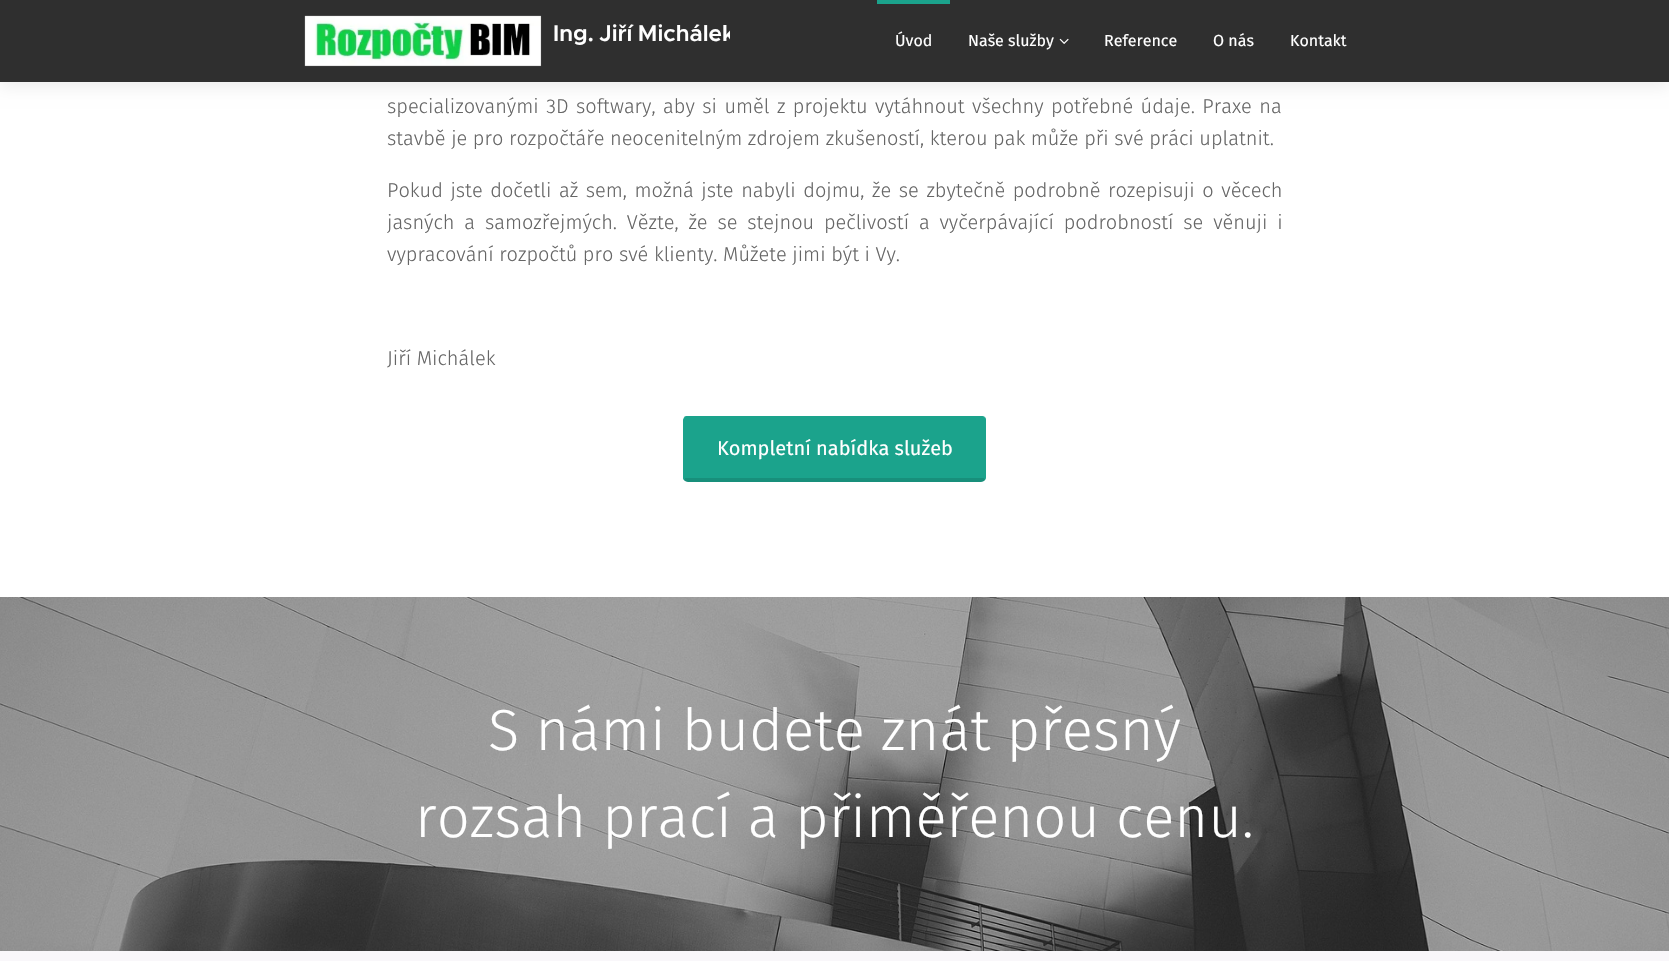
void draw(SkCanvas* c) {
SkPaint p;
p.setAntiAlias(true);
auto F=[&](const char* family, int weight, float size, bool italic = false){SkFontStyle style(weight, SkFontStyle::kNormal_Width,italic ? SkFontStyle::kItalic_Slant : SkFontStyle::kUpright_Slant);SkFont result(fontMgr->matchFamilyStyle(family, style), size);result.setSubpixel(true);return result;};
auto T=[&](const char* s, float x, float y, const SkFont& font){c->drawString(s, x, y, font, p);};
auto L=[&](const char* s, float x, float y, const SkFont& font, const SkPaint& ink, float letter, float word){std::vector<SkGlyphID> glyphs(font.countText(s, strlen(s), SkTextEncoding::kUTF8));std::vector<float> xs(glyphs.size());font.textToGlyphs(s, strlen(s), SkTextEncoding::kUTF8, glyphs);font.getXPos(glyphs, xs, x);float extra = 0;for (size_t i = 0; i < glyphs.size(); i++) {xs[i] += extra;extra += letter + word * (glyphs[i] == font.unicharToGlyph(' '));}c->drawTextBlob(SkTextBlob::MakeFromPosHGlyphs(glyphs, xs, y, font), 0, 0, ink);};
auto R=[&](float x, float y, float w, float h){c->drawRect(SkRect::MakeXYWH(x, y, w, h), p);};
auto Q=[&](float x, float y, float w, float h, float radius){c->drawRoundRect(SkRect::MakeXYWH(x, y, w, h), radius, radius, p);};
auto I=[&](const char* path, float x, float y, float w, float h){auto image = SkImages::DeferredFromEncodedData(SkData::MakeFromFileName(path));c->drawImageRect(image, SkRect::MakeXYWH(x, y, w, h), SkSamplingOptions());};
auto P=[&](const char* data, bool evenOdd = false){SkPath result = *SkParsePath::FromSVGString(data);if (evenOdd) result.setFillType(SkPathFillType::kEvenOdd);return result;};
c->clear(0xffffffff);
p.setColor(0x12000000);
p.setMaskFilter(SkMaskFilter::MakeBlur(kNormal_SkBlurStyle, 7.5));
c->drawRect(SkRect::MakeXYWH(0,5,1669,82),p);
p.setMaskFilter(nullptr);
p.setColor(0xff2f2f2f);
R(0,0,1669,82);
I("1.png",304,15,238,52);
c->save();
c->clipRect(SkRect::MakeXYWH(549,7,181,68));
auto f1 = F("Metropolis",600,22.75);
p.setColor(0xffffffff);
L("Ing. Jiří Michálek",553,41,f1,p,0,-1);
c->restore();
p.setColor(0xff1ba38c);
R(877,0,73,4);
auto f2 = F("Fira Sans",400,16);
p.setColor(0xffffffff);
T("Úvod",895,46,f2);
T("Naše služby",968,46,f2);
I("2.png",1059,38,10,6);
T("Reference",1104,46,f2);
T("O nás",1213,46,f2);
T("Kontakt",1290,46,f2);
auto f3 = F("Fira Sans",300,20);
p.setColor(0xff666666);
L("specializovanými 3D softwary, aby si uměl z projektu vytáhnout všechny potřebné údaje. Praxe na",387,113,f3,p,0,1.9);
T("stavbě je pro rozpočtáře neocenitelným zdrojem zkušeností, kterou pak může při své práci uplatnit.",387,145,f3);
L("Pokud jste dočetli až sem, možná jste nabyli dojmu, že se zbytečně podrobně rozepisuji o věcech",387,197,f3,p,0,2);
L("jasných a samozřejmých. Vězte, že se stejnou pečlivostí a vyčerpávající podrobností se věnuji i",387,229,f3,p,0,4.25);
T("vypracování rozpočtů pro své klienty. Můžete jimi být i Vy.",387,261,f3);
T("Jiří Michálek",387,365,f3);
p.setColor(0xff1ba38c);
Q(683,416,303,66,5);
c->drawPath(P("M688 416c-2 0-3 0-4 1l2 2l2-1h293l2 1l2-2c-1-1-3-1-4-1z"),p);
c->drawPath(P("M986 477v-56c0-1 0-3-1-4l-2 2l1 2v57l1 2z"),p);
p.setColor(0x1f000000);
c->drawPath(P("M688 482h293c2 0 3-1 4-2l-1-2h-3h-293h-3l-1 2c1 1 2 2 4 2z"),p);
p.setColor(0xff1ba38c);
c->drawPath(P("M683 421v56c0 1 0 2 1 3l1-2v-57l1-2l-2-2c0 1-1 3-1 4z"),p);
auto f4 = F("Fira Sans",400,20);
p.setColor(0xffffffff);
T("Kompletní nabídka služeb",717,455,f4);
I("3.png",0,597,1669,354);
auto f5 = F("Fira Sans",300,58);
T("S námi budete znát přesný",488,750,f5);
T("rozsah prací a přiměřenou cenu.",415,837,f5);
p.setColor(0xfff9f7fa);
R(0,951,1669,10);
}
